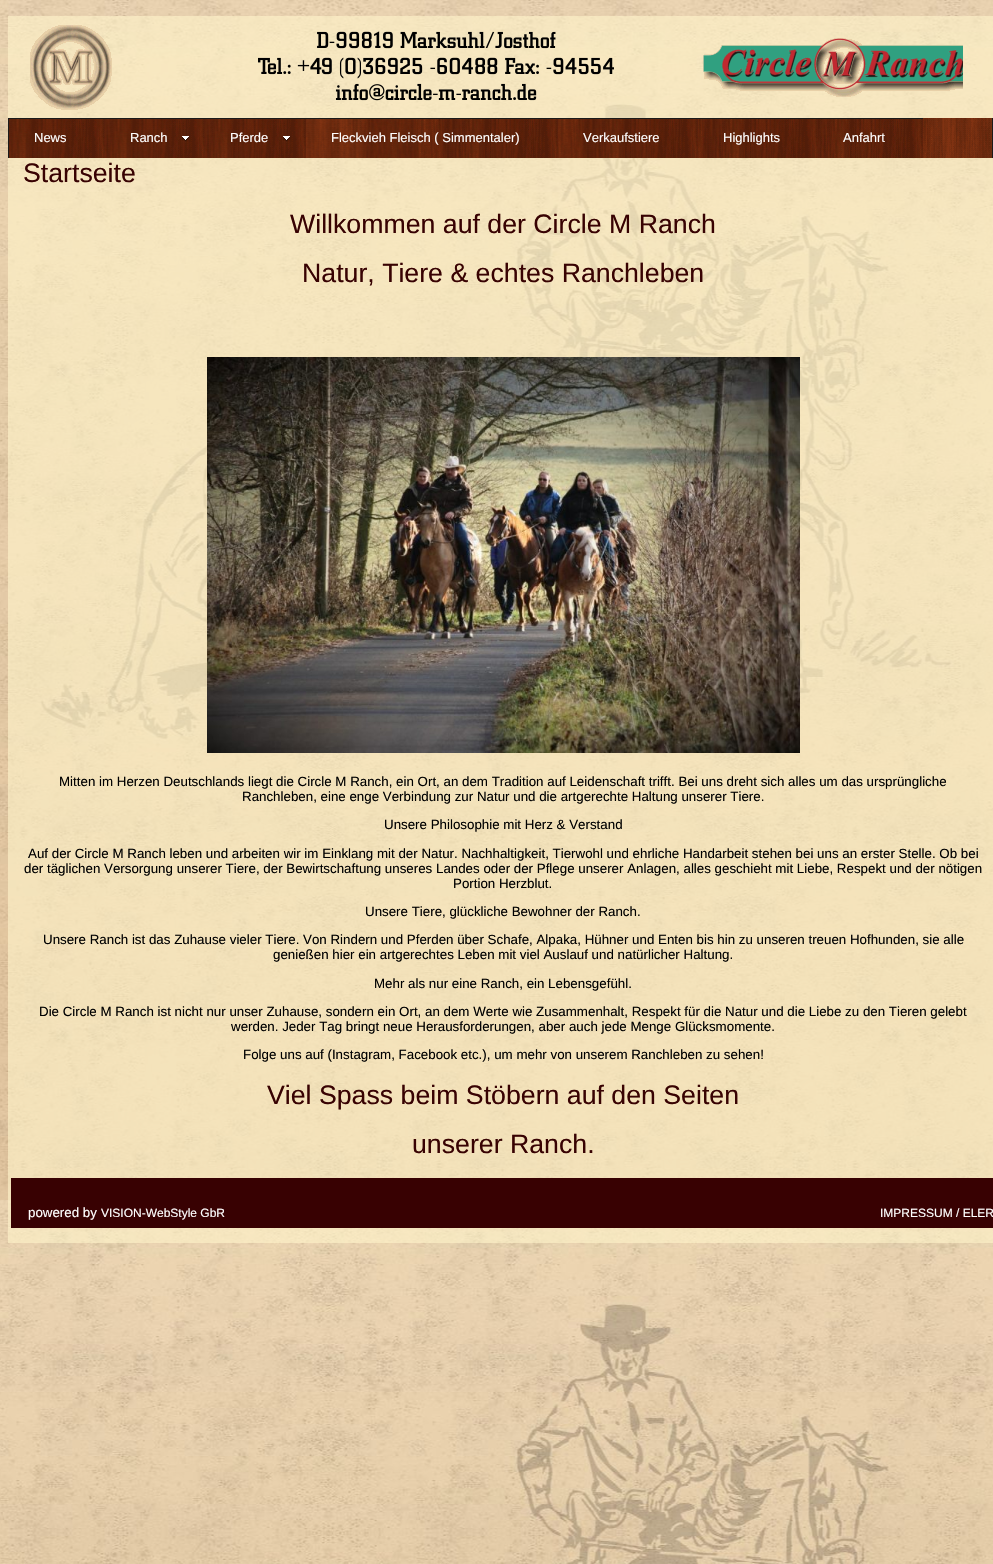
void draw(SkCanvas* c) {
SkPaint p;
p.setAntiAlias(true);
auto F=[&](const char* family, int weight, float size, bool italic = false){SkFontStyle style(weight, SkFontStyle::kNormal_Width,italic ? SkFontStyle::kItalic_Slant : SkFontStyle::kUpright_Slant);SkFont result(fontMgr->matchFamilyStyle(family, style), size);result.setSubpixel(true);return result;};
auto T=[&](const char* s, float x, float y, const SkFont& font){c->drawString(s, x, y, font, p);};
auto R=[&](float x, float y, float w, float h){c->drawRect(SkRect::MakeXYWH(x, y, w, h), p);};
auto I=[&](const char* path, float x, float y, float w, float h){auto image = SkImages::DeferredFromEncodedData(SkData::MakeFromFileName(path));c->drawImageRect(image, SkRect::MakeXYWH(x, y, w, h), SkSamplingOptions());};
c->clear(0xffffffff);
I("1.png",0,0,993,1564);
p.setColor(0x9efff4ca);
R(8,16,985,1227);
I("2.png",30,25,933,85);
I("3.png",923,118,69,40);
p.setColor(0xff1b1b1b);
R(992,118,1,40);
R(8,118,1,40);
I("4.png",9,118,96,40);
auto f1 = F("Liberation Sans",400,13);
p.setColor(0xffffffff);
T("News",34,142,f1);
I("5.png",105,118,100,40);
T("Ranch",130,142,f1);
I("6.png",182,136,8,6);
I("7.png",205,118,101,40);
T("Pferde",230,142,f1);
I("8.png",283,136,8,6);
I("9.png",306,118,252,40);
T("Fleckvieh Fleisch ( Simmentaler)",331,142,f1);
I("10.png",558,118,140,40);
T("Verkaufstiere",583,142,f1);
I("11.png",698,118,120,40);
T("Highlights",723,142,f1);
I("12.png",818,118,105,40);
T("Anfahrt",843,142,f1);
auto f2 = F("Liberation Sans",400,26.7);
p.setColor(0xff380202);
T("Startseite",23,182,f2);
T("Willkommen auf der Circle M Ranch",290,233,f2);
T("Natur, Tiere & echtes Ranchleben",302,282,f2);
I("13.png",207,357,593,396);
auto f3 = F("Liberation Sans",400,13.33);
p.setColor(0xff000000);
T("Mitten im Herzen Deutschlands liegt die Circle M Ranch, ein Ort, an dem Tradition auf Leidenschaft trifft. Bei uns dreht sich alles um das ursprüngliche",59,786,f3);
T("Ranchleben, eine enge Verbindung zur Natur und die artgerechte Haltung unserer Tiere.",242,801,f3);
T("Unsere Philosophie mit Herz & Verstand",384,829,f3);
T("Auf der Circle M Ranch leben und arbeiten wir im Einklang mit der Natur. Nachhaltigkeit, Tierwohl und ehrliche Handarbeit stehen bei uns an erster Stelle. Ob bei",28,858,f3);
T("der täglichen Versorgung unserer Tiere, der Bewirtschaftung unseres Landes oder der Pflege unserer Anlagen, alles geschieht mit Liebe, Respekt und der nötigen",24,873,f3);
T("Portion Herzblut.",453,888,f3);
T("Unsere Tiere, glückliche Bewohner der Ranch.",365,916,f3);
T("Unsere Ranch ist das Zuhause vieler Tiere. Von Rindern und Pferden über Schafe, Alpaka, Hühner und Enten bis hin zu unseren treuen Hofhunden, sie alle",43,944,f3);
T("genießen hier ein artgerechtes Leben mit viel Auslauf und natürlicher Haltung.",273,959,f3);
T("Mehr als nur eine Ranch, ein Lebensgefühl.",374,988,f3);
T("Die Circle M Ranch ist nicht nur unser Zuhause, sondern ein Ort, an dem Werte wie Zusammenhalt, Respekt für die Natur und die Liebe zu den Tieren gelebt",39,1016,f3);
T("werden. Jeder Tag bringt neue Herausforderungen, aber auch jede Menge Glücksmomente.",231,1031,f3);
T("Folge uns auf (Instagram, Facebook etc.), um mehr von unserem Ranchleben zu sehen!",243,1059,f3);
p.setColor(0xff380202);
T("Viel Spass beim Stöbern auf den Seiten",267,1104,f2);
T("unserer Ranch.",412,1153,f2);
p.setColor(0xff380102);
R(11,1178,982,50);
p.setColor(0xffffffff);
T("powered by",28,1217,f3);
auto f4 = F("Liberation Sans",400,12);
T("VISION-WebStyle GbR",101,1217,f4);
T("IMPRESSUM / ELER",880,1217,f4);
}
